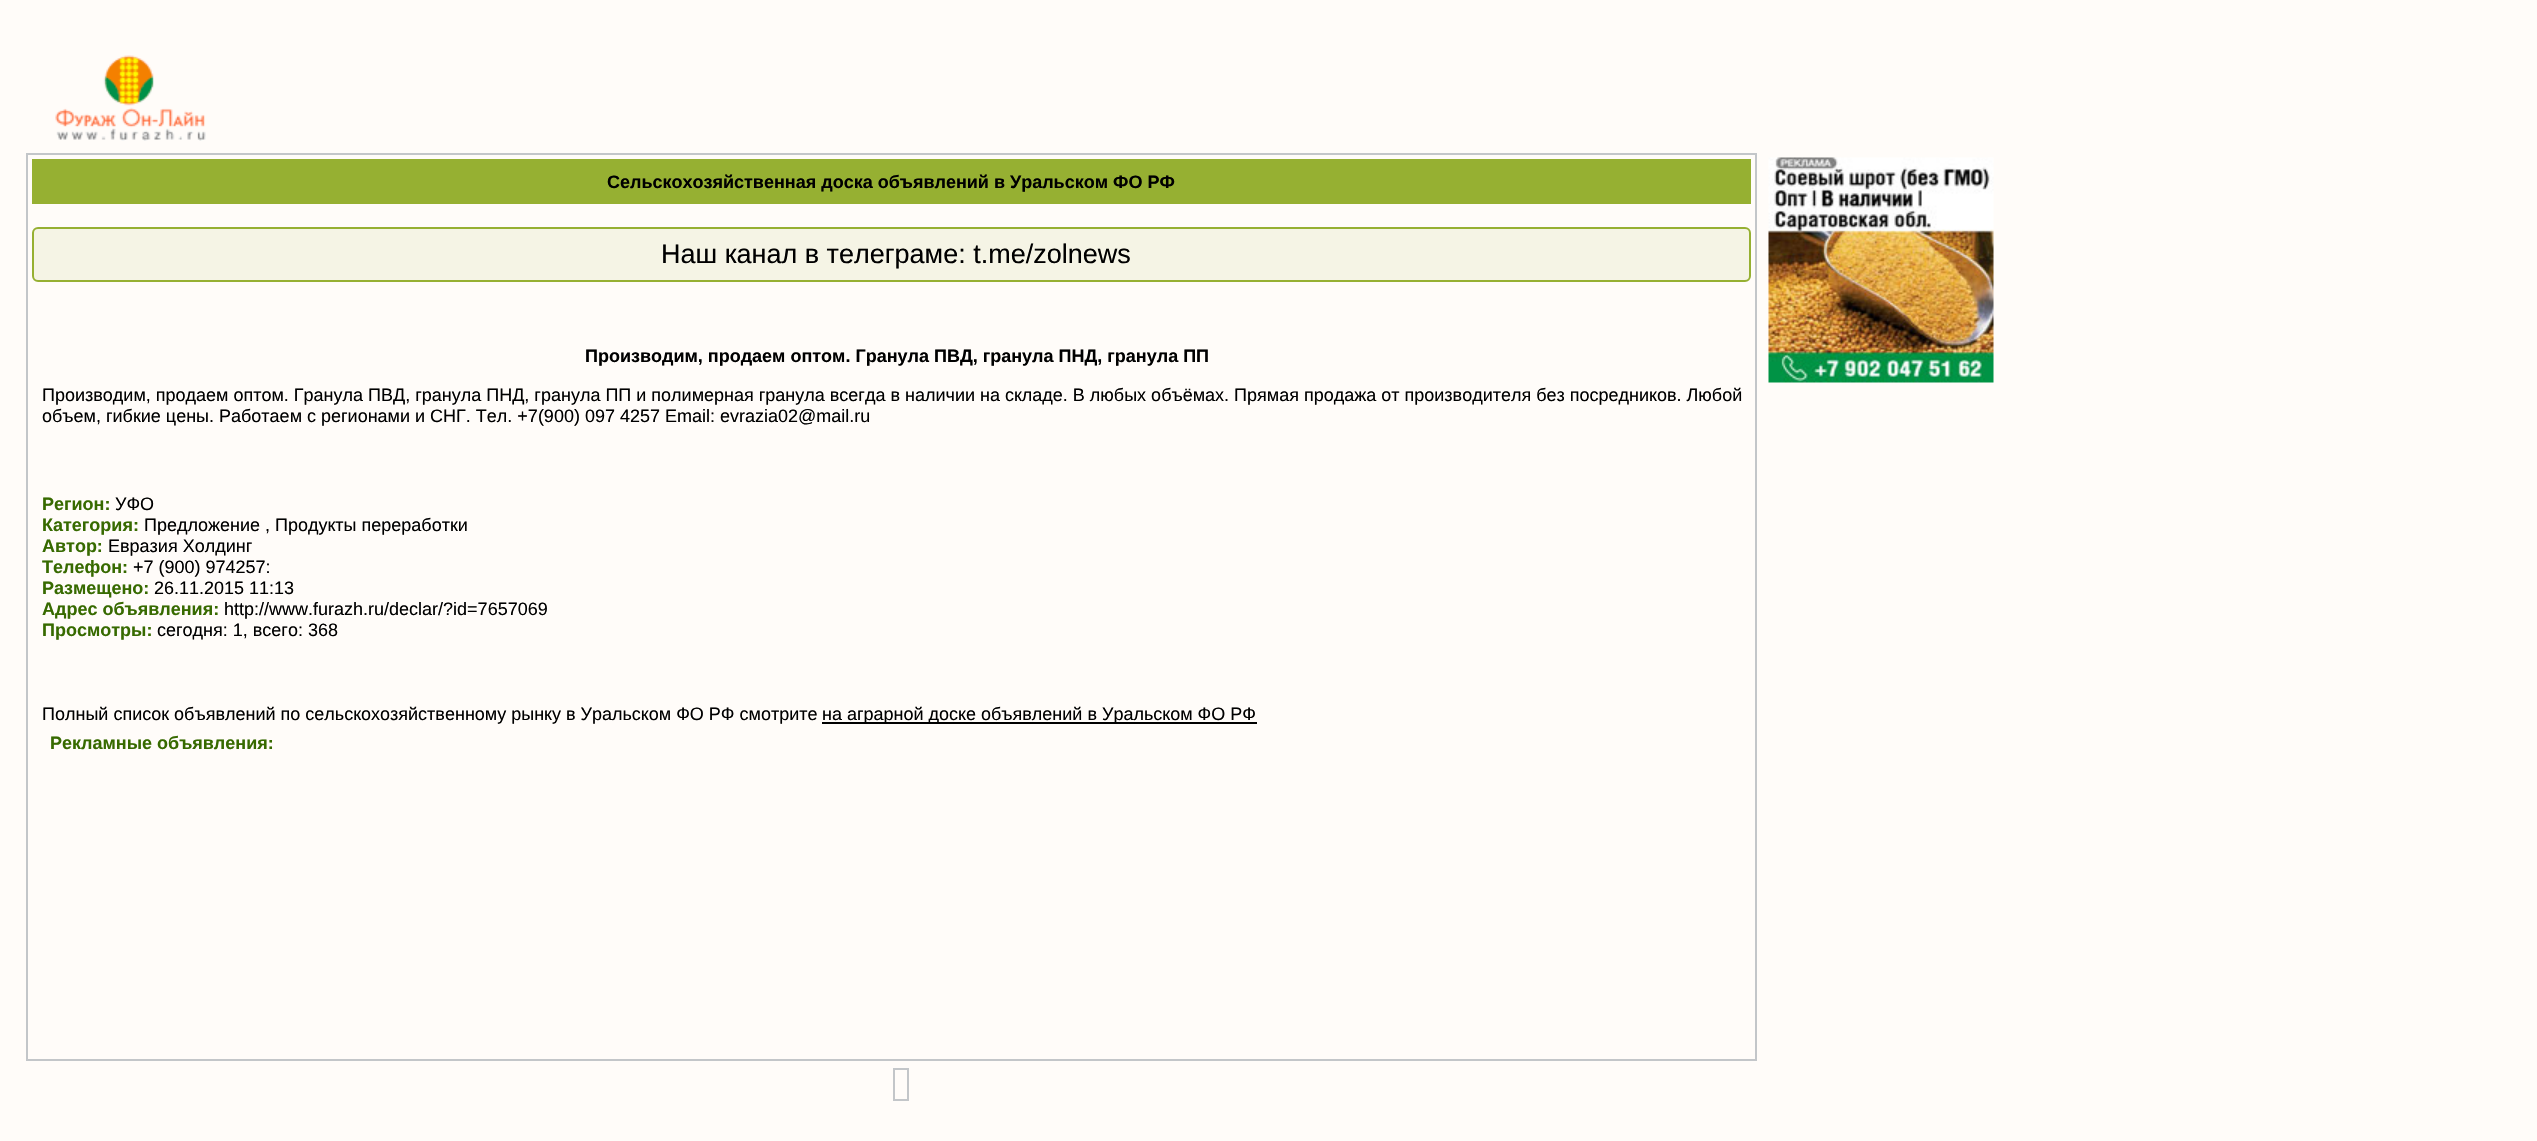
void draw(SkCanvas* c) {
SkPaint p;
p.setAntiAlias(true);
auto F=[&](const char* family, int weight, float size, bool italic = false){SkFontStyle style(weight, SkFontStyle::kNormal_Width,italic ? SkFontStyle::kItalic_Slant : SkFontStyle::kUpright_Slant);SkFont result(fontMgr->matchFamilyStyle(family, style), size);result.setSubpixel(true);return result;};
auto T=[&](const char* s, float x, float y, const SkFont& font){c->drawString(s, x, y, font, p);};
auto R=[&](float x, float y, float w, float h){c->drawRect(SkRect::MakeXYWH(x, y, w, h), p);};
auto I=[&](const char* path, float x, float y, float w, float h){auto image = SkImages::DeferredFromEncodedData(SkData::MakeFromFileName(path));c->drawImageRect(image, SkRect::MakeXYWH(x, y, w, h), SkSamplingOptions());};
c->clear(0xfffffcf9);
I("1.png",55,55,151,86);
p.setStroke(true);
p.setStrokeWidth(2);
p.setColor(0xffc3c6c9);
c->drawRect(SkRect::MakeXYWH(27,154,1729,906),p);
p.setStroke(false);
p.setColor(0xff96b032);
R(32,159,1719,45);
auto f1 = F("Liberation Sans",700,18);
p.setColor(0xff000000);
T("Сельскохозяйственная доска объявлений в Уральском ФО РФ",607,188,f1);
p.setColor(0xfff5f4e5);
c->drawRoundRect(SkRect::MakeXYWH(33,228,1717,53),5,5,p);
p.setStroke(true);
p.setColor(0xff96b032);
c->drawRoundRect(SkRect::MakeXYWH(33,228,1717,53),5,5,p);
auto f2 = F("Liberation Sans",400,27);
p.setStroke(false);
p.setColor(0xff000000);
T("Наш канал в телеграме: t.me/zolnews",661,263,f2);
T("Производим, продаем оптом. Гранула ПВД, гранула ПНД, гранула ПП",585,362,f1);
auto f3 = F("Liberation Sans",400,18);
T("Производим, продаем оптом. Гранула ПВД, гранула ПНД, гранула ПП и полимерная гранула всегда в наличии на складе. В любых объёмах. Прямая продажа от производителя без посредников. Любой",42,401,f3);
T("объем, гибкие цены. Работаем с регионами и СНГ. Тел. +7(900) 097 4257 Email: evrazia02@mail.ru",42,422,f3);
p.setColor(0xff376a00);
T("Регион:",42,510,f1);
p.setColor(0xff000000);
T("УФО",115,510,f3);
p.setColor(0xff376a00);
T("Категория:",42,531,f1);
p.setColor(0xff000000);
T("Предложение , Продукты переработки",144,531,f3);
p.setColor(0xff376a00);
T("Автор:",42,552,f1);
p.setColor(0xff000000);
T("Евразия Холдинг",108,552,f3);
p.setColor(0xff376a00);
T("Телефон:",42,573,f1);
p.setColor(0xff000000);
T("+7 (900) 974257:",133,573,f3);
p.setColor(0xff376a00);
T("Размещено:",42,594,f1);
p.setColor(0xff000000);
T("26.11.2015 11:13",154,594,f3);
p.setColor(0xff376a00);
T("Адрес объявления:",42,615,f1);
p.setColor(0xff000000);
T("http://www.furazh.ru/declar/?id=7657069",224,615,f3);
p.setColor(0xff376a00);
T("Просмотры:",42,636,f1);
p.setColor(0xff000000);
T("сегодня: 1, всего: 368",157,636,f3);
T("Полный список объявлений по сельскохозяйственному рынку в Уральском ФО РФ смотрите",42,720,f3);
R(822,722,435,2);
T("на аграрной доске объявлений в Уральском ФО РФ",822,720,f3);
p.setColor(0xff376a00);
T("Рекламные объявления:",50,749,f1);
I("2.png",1768,157,226,226);
p.setStroke(true);
p.setColor(0xffc3c6c9);
c->drawRect(SkRect::MakeXYWH(894,1069,14,31),p);
}
